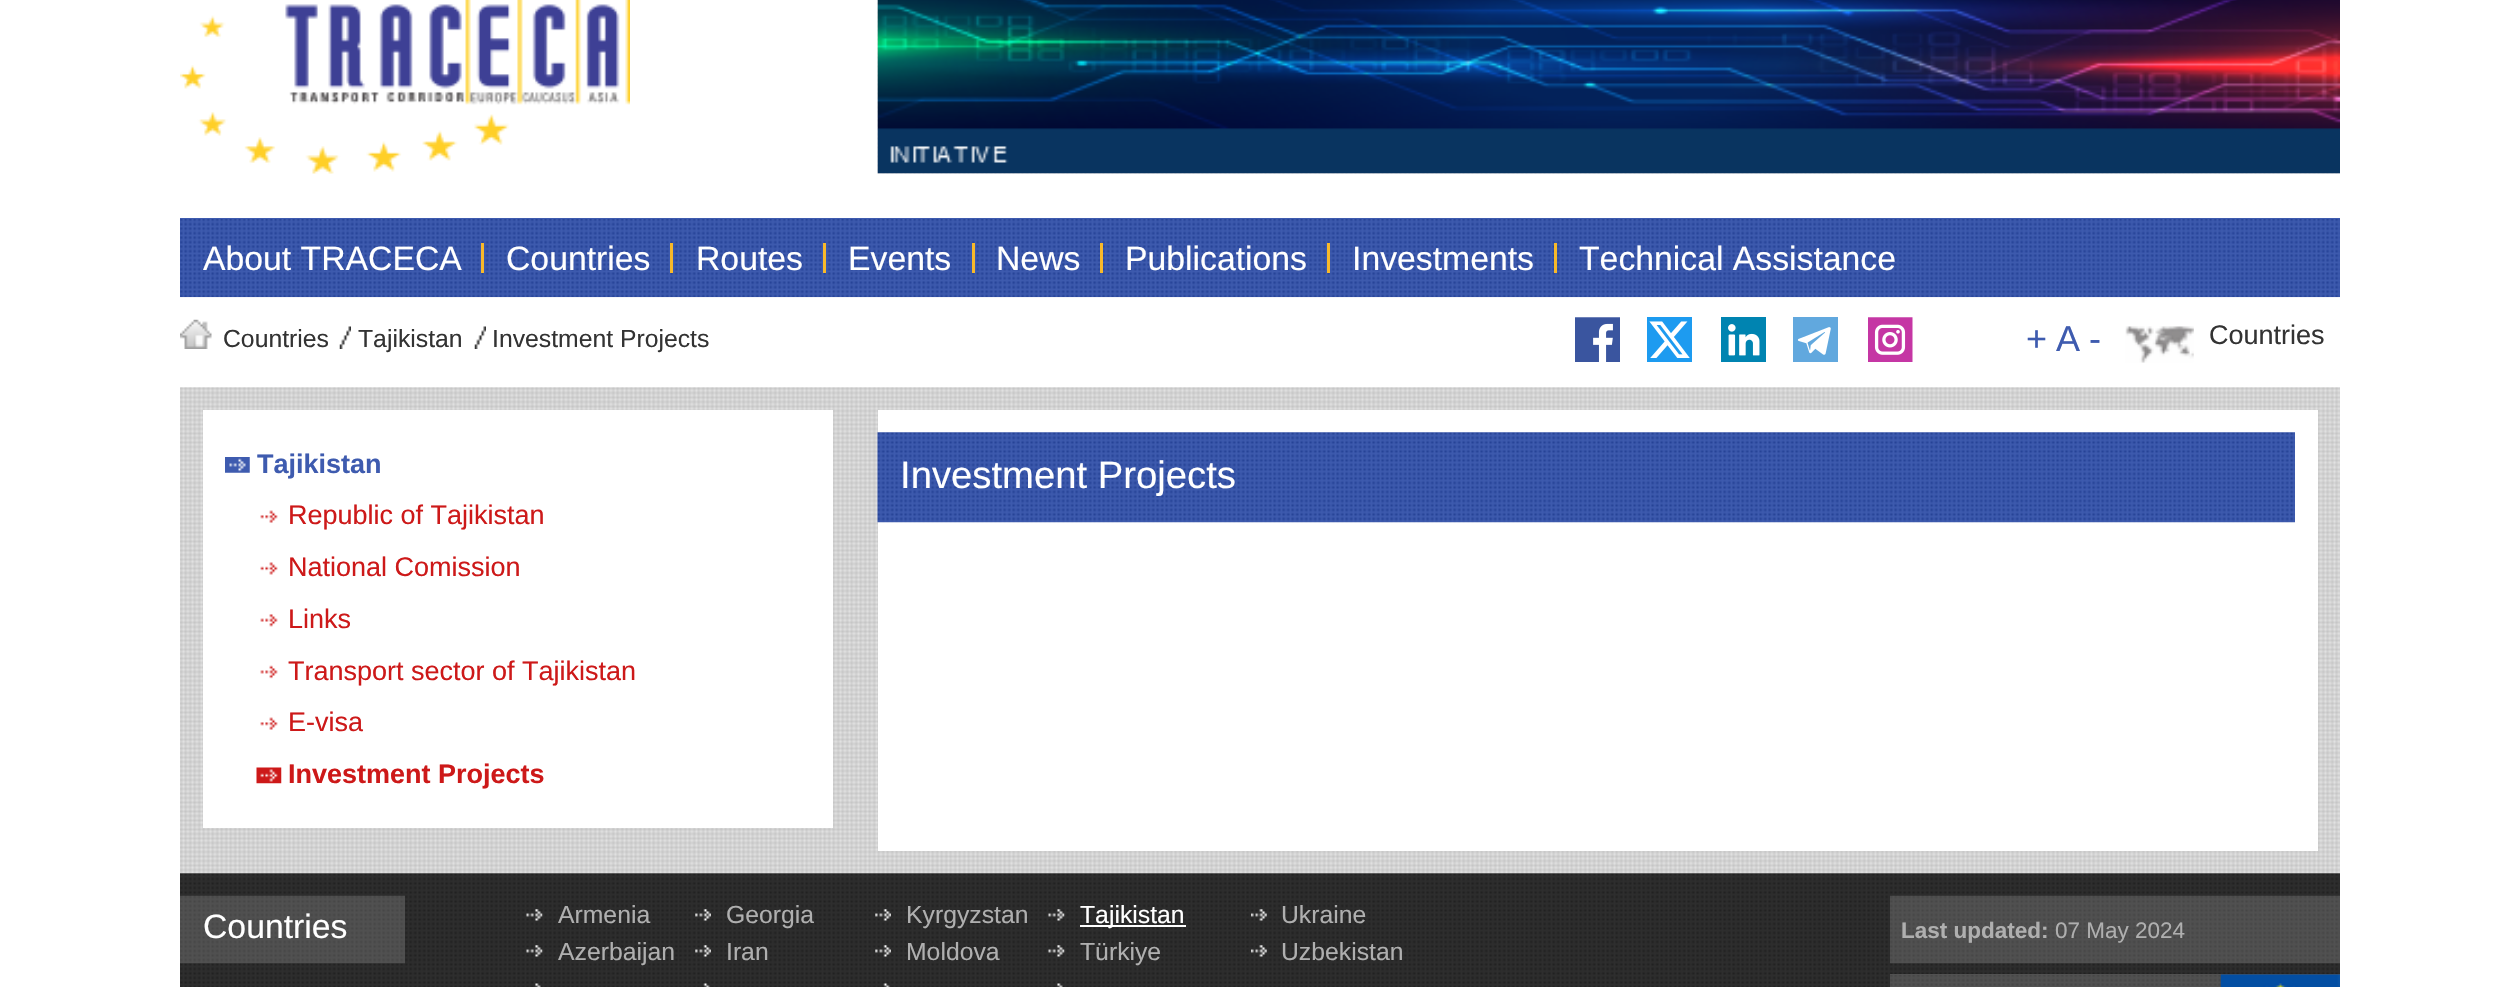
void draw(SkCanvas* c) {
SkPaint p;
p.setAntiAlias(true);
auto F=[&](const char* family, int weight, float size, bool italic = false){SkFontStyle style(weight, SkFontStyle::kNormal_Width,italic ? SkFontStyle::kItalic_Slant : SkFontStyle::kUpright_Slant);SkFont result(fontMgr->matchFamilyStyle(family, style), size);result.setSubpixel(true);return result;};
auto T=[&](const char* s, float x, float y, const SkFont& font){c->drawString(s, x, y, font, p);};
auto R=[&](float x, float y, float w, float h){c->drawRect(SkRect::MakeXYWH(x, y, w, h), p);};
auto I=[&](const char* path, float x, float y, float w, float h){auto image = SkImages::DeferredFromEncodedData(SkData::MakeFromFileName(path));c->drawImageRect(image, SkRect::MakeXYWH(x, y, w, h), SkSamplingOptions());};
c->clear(0xffffffff);
I("1.png",180,0,450,174);
I("2.png",877,0,1463,174);
I("3.png",877,0,1463,174);
p.setColor(0xff3e5baf);
R(180,218,2160,1);
I("4.png",180,219,2160,79);
p.setColor(0xfff8b92a);
R(481,243,3,30);
auto f1 = F("Liberation Sans",400,33.75);
p.setColor(0xffffffff);
T("About TRACECA",203,270,f1);
p.setColor(0xfff8b92a);
R(670,243,3,30);
p.setColor(0xffffffff);
T("Countries",506,270,f1);
p.setColor(0xfff8b92a);
R(823,243,3,30);
p.setColor(0xffffffff);
T("Routes",696,270,f1);
p.setColor(0xfff8b92a);
R(972,243,3,30);
p.setColor(0xffffffff);
T("Events",848,270,f1);
p.setColor(0xfff8b92a);
R(1100,243,3,30);
p.setColor(0xffffffff);
T("News",996,270,f1);
p.setColor(0xfff8b92a);
R(1327,243,3,30);
p.setColor(0xffffffff);
T("Publications",1125,270,f1);
p.setColor(0xfff8b92a);
R(1554,243,3,30);
p.setColor(0xffffffff);
T("Investments",1352,270,f1);
T("Technical Assistance",1579,270,f1);
I("5.png",180,319,32,30);
auto f2 = F("Liberation Sans",400,24.75);
p.setColor(0xff333333);
T("Countries",223,347,f2);
I("6.png",339,326,12,23);
T("Tajikistan",358,347,f2);
I("7.png",474,326,12,23);
T("Investment Projects",492,347,f2);
I("8.png",1575,317,45,45);
p.setColor(0xff1d9bf0);
R(1647,317,45,45);
I("9.png",1649,321,41,37);
I("10.png",1721,317,45,45);
I("11.png",1793,317,45,45);
I("12.png",1868,317,45,45);
auto f3 = F("Liberation Sans",400,36);
p.setColor(0xff3e5baf);
T("+",2026,351,f3);
T("A",2056,351,f3);
T("-",2089,351,f3);
I("13.png",2125,326,69,37);
auto f4 = F("Liberation Sans",400,27);
p.setColor(0xff333333);
T("Countries",2209,344,f4);
I("14.png",180,387,2160,487);
p.setColor(0xffffffff);
R(203,410,630,418);
I("15.png",225,457,25,16);
auto f5 = F("Liberation Sans",700,27);
p.setColor(0xff3e5baf);
T("Tajikistan",257,473,f5);
I("16.png",260,510,18,13);
p.setColor(0xffcd1919);
T("Republic of Tajikistan",288,524,f4);
I("17.png",260,562,18,13);
T("National Comission",288,576,f4);
I("18.png",260,614,18,13);
T("Links",288,628,f4);
I("19.png",260,665,18,14);
T("Transport sector of Tajikistan",288,680,f4);
I("16.png",260,717,18,13);
T("E-visa",288,731,f4);
I("20.png",256,767,26,17);
T("Investment Projects",288,783,f5);
p.setColor(0xffffffff);
R(878,410,1440,441);
I("21.png",877,432,1418,91);
auto f6 = F("Liberation Sans",400,38.25);
T("Investment Projects",900,488,f6);
I("22.png",180,873,2160,114);
I("23.png",180,895,225,69);
T("Countries",203,938,f1);
I("24.png",526,909,17,12);
p.setColor(0xffafafaf);
T("Armenia",558,923,f2);
I("24.png",526,945,17,12);
T("Azerbaijan",558,960,f2);
I("25.png",535,983,6,4);
I("26.png",695,909,16,12);
T("Georgia",726,923,f2);
I("26.png",695,945,16,12);
T("Iran",726,960,f2);
I("27.png",703,983,7,4);
I("28.png",875,909,16,12);
T("Kyrgyzstan",906,923,f2);
I("28.png",875,945,16,12);
T("Moldova",906,960,f2);
I("29.png",883,983,7,4);
I("24.png",1048,909,17,12);
p.setColor(0xffffffff);
R(1080,925,106,2);
T("Tajikistan",1080,923,f2);
I("24.png",1048,945,17,12);
p.setColor(0xffafafaf);
T("Türkiye",1080,960,f2);
I("25.png",1057,983,6,4);
I("30.png",1251,909,16,12);
T("Ukraine",1281,923,f2);
I("30.png",1251,945,16,12);
T("Uzbekistan",1281,960,f2);
I("31.png",1890,895,450,69);
auto f7 = F("Liberation Sans",700,22.5);
T("Last updated:",1901,938,f7);
auto f8 = F("Liberation Sans",400,22.5);
T("07 May 2024",2055,938,f8);
p.setColor(0xff515151);
R(1890,974,450,13);
I("32.png",1890,975,331,11);
I("33.png",2220,974,120,13);
}
